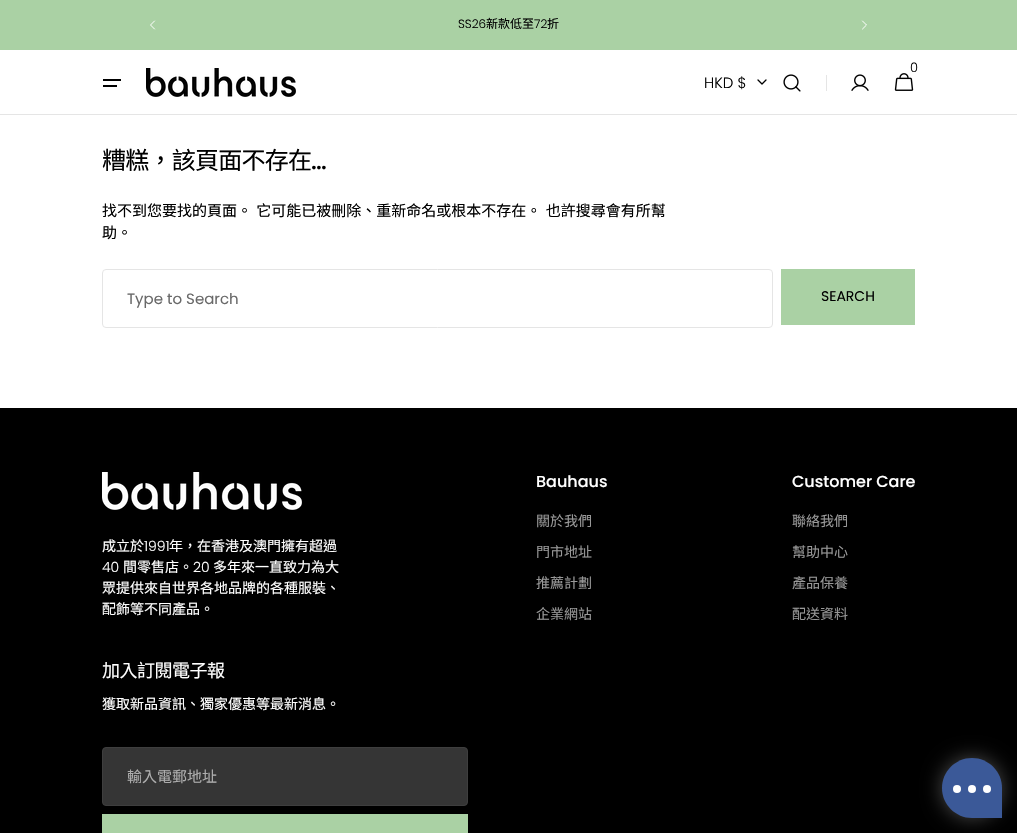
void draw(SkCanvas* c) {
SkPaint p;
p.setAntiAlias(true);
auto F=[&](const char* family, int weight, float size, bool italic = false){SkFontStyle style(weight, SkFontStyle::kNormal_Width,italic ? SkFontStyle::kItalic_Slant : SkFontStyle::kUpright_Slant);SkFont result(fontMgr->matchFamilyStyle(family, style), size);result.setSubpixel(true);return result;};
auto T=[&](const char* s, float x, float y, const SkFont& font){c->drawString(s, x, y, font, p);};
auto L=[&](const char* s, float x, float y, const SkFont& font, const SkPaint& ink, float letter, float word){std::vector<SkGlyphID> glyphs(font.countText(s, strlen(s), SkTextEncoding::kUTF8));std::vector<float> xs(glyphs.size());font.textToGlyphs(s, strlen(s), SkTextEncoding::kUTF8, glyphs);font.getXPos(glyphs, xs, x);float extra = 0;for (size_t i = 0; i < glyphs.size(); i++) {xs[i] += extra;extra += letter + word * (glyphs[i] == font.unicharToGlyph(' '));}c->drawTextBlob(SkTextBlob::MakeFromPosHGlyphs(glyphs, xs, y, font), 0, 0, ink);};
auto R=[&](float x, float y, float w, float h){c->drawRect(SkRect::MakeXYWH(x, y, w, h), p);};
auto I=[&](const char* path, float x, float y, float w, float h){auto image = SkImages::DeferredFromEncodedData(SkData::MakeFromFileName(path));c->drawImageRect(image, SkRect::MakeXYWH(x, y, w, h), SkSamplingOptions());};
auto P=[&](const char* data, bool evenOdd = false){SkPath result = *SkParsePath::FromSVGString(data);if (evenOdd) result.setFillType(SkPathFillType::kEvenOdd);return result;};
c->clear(0xffffffff);
p.setColor(0xffaad1a4);
R(0,0,1017,50);
auto f1 = F("Poppins",300,12);
p.setColor(0xff000000);
T("SS26",458,28,f1);
auto f2 = F("Noto Sans CJK TC",400,12);
T("新款低至",486,28,f2);
T("72",534,28,f1);
T("折",547,28,f2);
p.setStroke(true);
p.setStrokeWidth(1);
p.setStrokeCap(SkPaint::kRound_Cap);
p.setStrokeJoin(SkPaint::kRound_Join);
p.setColor(0xffffffff);
c->drawPath(P("M154.5 29l-4-4l4-4"),p);
c->drawPath(P("M862.5 21l4 4l-4 4"),p);
p.setStroke(false);
p.setColor(0xff000000);
R(103,79,18,2);
R(103,85,14,2);
I("1.png",146,68,150,29);
auto f3 = F("Poppins",300,13);
T("0",910,72,f3);
I("2.png",894,73,20,18);
auto f4 = F("Poppins",300,15);
T("HKD $",704,88,f4);
p.setStroke(true);
p.setStrokeWidth(1.3);
c->drawPath(P("M766 80l-4 4l-4-4"),p);
I("3.png",783,74,18,18);
p.setStroke(false);
p.setColor(0xffe5e5e5);
R(826,75,1,16);
I("4.png",851,74,18,17);
R(0,114,1017,1);
auto f5 = F("Noto Sans CJK TC",400,24);
p.setColor(0xff000000);
L("糟糕，該頁面不存在",102,169,f5,p,-.75,0);
auto f6 = F("Poppins",500,24);
L("...",311,169,f6,p,-.75,0);
auto f7 = F("Noto Sans CJK TC",400,15);
L("找不到您要找的頁面。 它可能已被刪除、重新命名或根本不存在。 也許搜尋會有所幫",102,216,f7,p,0,1);
T("助。",102,238,f7);
p.setStroke(true);
p.setStrokeWidth(1);
p.setStrokeCap(SkPaint::kButt_Cap);
p.setStrokeJoin(SkPaint::kMiter_Join);
p.setColor(0xffe5e5e5);
c->drawRoundRect(SkRect::MakeXYWH(102.5,269.5,670,58),3.5,3.5,p);
auto f8 = F("Poppins",400,15);
p.setStroke(false);
p.setColor(0xff696969);
T("Type to Search",127,304,f8);
p.setColor(0xffaad1a4);
R(781,269,134,56);
auto f9 = F("Poppins",400,14);
p.setColor(0xff000000);
T("SEARCH",821,301,f9);
R(0,408,1017,425);
I("5.png",102,472,200,38);
auto f10 = F("Noto Sans CJK TC",400,14);
p.setColor(0xffffffff);
T("成立於",102,551,f10);
auto f11 = F("Poppins",300,14);
T("1991",144,551,f11);
T("年，在香港及澳門擁有超過",169,551,f10);
T("40",102,572,f11);
T("間零售店。",123,572,f10);
T("20",193,572,f11);
T("多年來一直致力為大",213,572,f10);
T("眾提供來自世界各地品牌的各種服裝、",102,593,f10);
T("配飾等不同產品。",102,614,f10);
auto f12 = F("Poppins",500,16);
T("Bauhaus",536,487,f12);
p.setColor(0xff999999);
T("關於我們",536,526,f10);
T("門市地址",536,557,f10);
T("推薦計劃",536,588,f10);
T("企業網站",536,619,f10);
p.setColor(0xffffffff);
T("Customer Care",792,487,f12);
p.setColor(0xff999999);
T("聯絡我們",792,526,f10);
T("幫助中心",792,557,f10);
T("產品保養",792,588,f10);
T("配送資料",792,619,f10);
auto f13 = F("Noto Sans CJK TC",400,18);
p.setColor(0xffffffff);
L("加入訂閱電子報",102,677,f13,p,-.5,0);
T("獲取新品資訊、獨家優惠等最新消息。",102,709,f10);
p.setColor(0xff353535);
c->drawRoundRect(SkRect::MakeXYWH(102.5,747.5,365,58),3.5,3.5,p);
p.setStroke(true);
p.setColor(0xff3e3e3e);
c->drawRoundRect(SkRect::MakeXYWH(102.5,747.5,365,58),3.5,3.5,p);
p.setStroke(false);
p.setColor(0xffaeaeae);
T("輸入電郵地址",127,782,f7);
p.setColor(0xffaad1a4);
R(102,814,366,19);
p.setColor(0xa3777777);
p.setMaskFilter(SkMaskFilter::MakeBlur(kNormal_SkBlurStyle, 10));
c->drawRoundRect(SkRect::MakeXYWH(942,758,60,60),30,30,p);
p.setMaskFilter(nullptr);
p.setColor(0xff3b5998);
c->drawPath(P("M972 758c16.5 0 30 13.5 30 30v30h-30c-16.5 0-30-13.5-30-30c0-16.5 13.5-30 30-30z"),p);
p.setColor(0xffffffff);
c->drawCircle(957,789,4,p);
c->drawCircle(972,789,4,p);
c->drawCircle(987,789,4,p);
}
